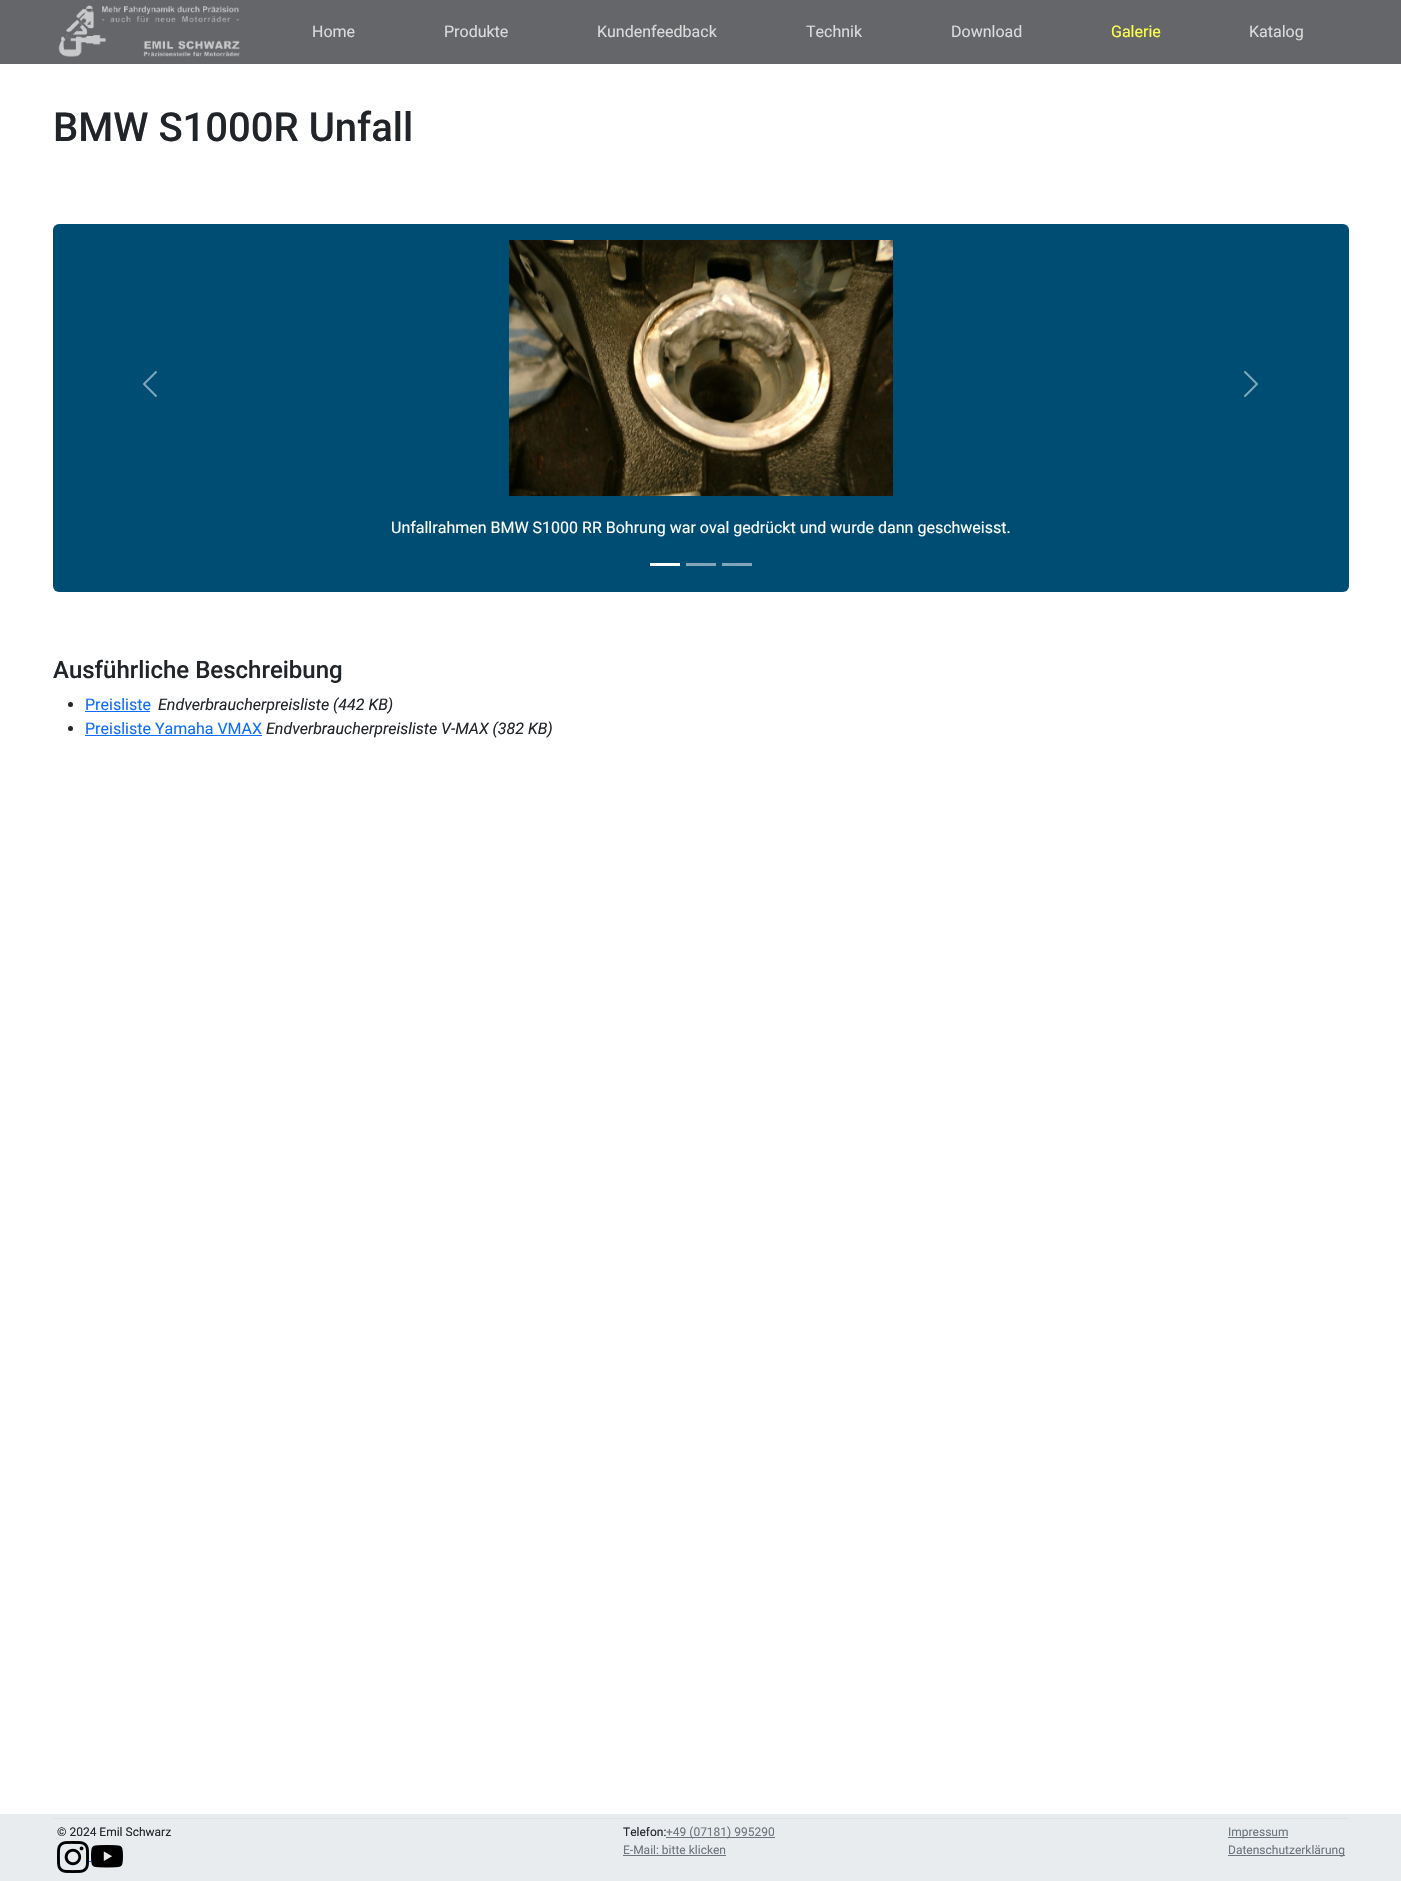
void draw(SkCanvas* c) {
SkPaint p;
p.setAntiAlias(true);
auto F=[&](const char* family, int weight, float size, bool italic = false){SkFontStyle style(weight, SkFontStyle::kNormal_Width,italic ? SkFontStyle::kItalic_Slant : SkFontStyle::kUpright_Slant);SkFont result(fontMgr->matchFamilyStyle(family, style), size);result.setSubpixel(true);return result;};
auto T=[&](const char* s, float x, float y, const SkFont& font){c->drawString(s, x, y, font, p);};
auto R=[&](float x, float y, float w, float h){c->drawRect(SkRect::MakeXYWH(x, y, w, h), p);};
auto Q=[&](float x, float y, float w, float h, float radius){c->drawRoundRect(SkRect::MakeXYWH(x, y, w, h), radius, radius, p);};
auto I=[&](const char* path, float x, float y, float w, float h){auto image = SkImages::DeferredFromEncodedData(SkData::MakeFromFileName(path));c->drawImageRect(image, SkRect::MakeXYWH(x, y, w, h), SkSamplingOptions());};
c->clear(0xffffffff);
p.setColor(0xff646669);
R(0,0,1401,64);
I("1.png",58,5,182,52);
auto f1 = F("Roboto",400,16);
p.setColor(0xffdbdbdb);
T("Home",312,37,f1);
T("Produkte",444,37,f1);
T("Kundenfeedback",597,37,f1);
T("Technik",806,37,f1);
T("Download",951,37,f1);
p.setColor(0xffffff4d);
T("Galerie",1111,37,f1);
p.setColor(0xffdbdbdb);
T("Katalog",1249,37,f1);
auto f2 = F("Roboto",500,40);
p.setColor(0xff212529);
T("BMW S1000R Unfall",53,141,f2);
p.setColor(0xff004d74);
Q(53,224,1296,368,6);
I("2.png",143,371,14,26);
I("3.png",1244,371,14,26);
I("4.png",509,240,384,256);
p.setColor(0xffffffff);
T("Unfallrahmen BMW S1000 RR Bohrung war oval gedrückt und wurde dann geschweisst.",391,533,f1);
R(650,563,30,3);
p.setColor(0xff80a6ba);
R(686,563,30,3);
R(722,563,30,3);
auto f3 = F("Roboto",500,24);
p.setColor(0xff212529);
T("Ausführliche Beschreibung",53,678,f3);
c->drawCircle(70.5,704.5,2.5,p);
p.setColor(0xff0d6efd);
T("Preisliste",85,710,f1);
R(85,711,65,1);
auto f4 = F("Roboto",400,16,true);
p.setColor(0xff212529);
T("Endverbraucherpreisliste (442 KB)",158,710,f4);
c->drawCircle(70.5,728.5,2.5,p);
p.setColor(0xff0d6efd);
T("Preisliste Yamaha VMAX",85,734,f1);
R(85,735,177,1);
p.setColor(0xff212529);
T("Endverbraucherpreisliste V-MAX (382 KB)",266,734,f4);
p.setColor(0xffe9ecef);
R(0,1814,1401,67);
p.setColor(0xffdee2e6);
R(53,1818,1296,1);
auto f5 = F("Roboto",400,12);
p.setColor(0xff212529);
T("© 2024 Emil Schwarz",57,1836,f5);
I("5.png",57,1841,32,32);
p.setColor(0xff0d6efd);
R(89,1861,2,1);
I("6.png",91,1845,32,23);
p.setColor(0xff212529);
T("Telefon:",623,1836,f5);
p.setColor(0xff6c757d);
R(666,1837,109,1);
T("+49 (07181) 995290",666,1836,f5);
T("E-Mail: bitte klicken",623,1854,f5);
R(623,1855,103,1);
R(1228,1837,60,1);
T("Impressum",1228,1836,f5);
R(1228,1855,117,1);
T("Datenschutzerklärung",1228,1854,f5);
}
